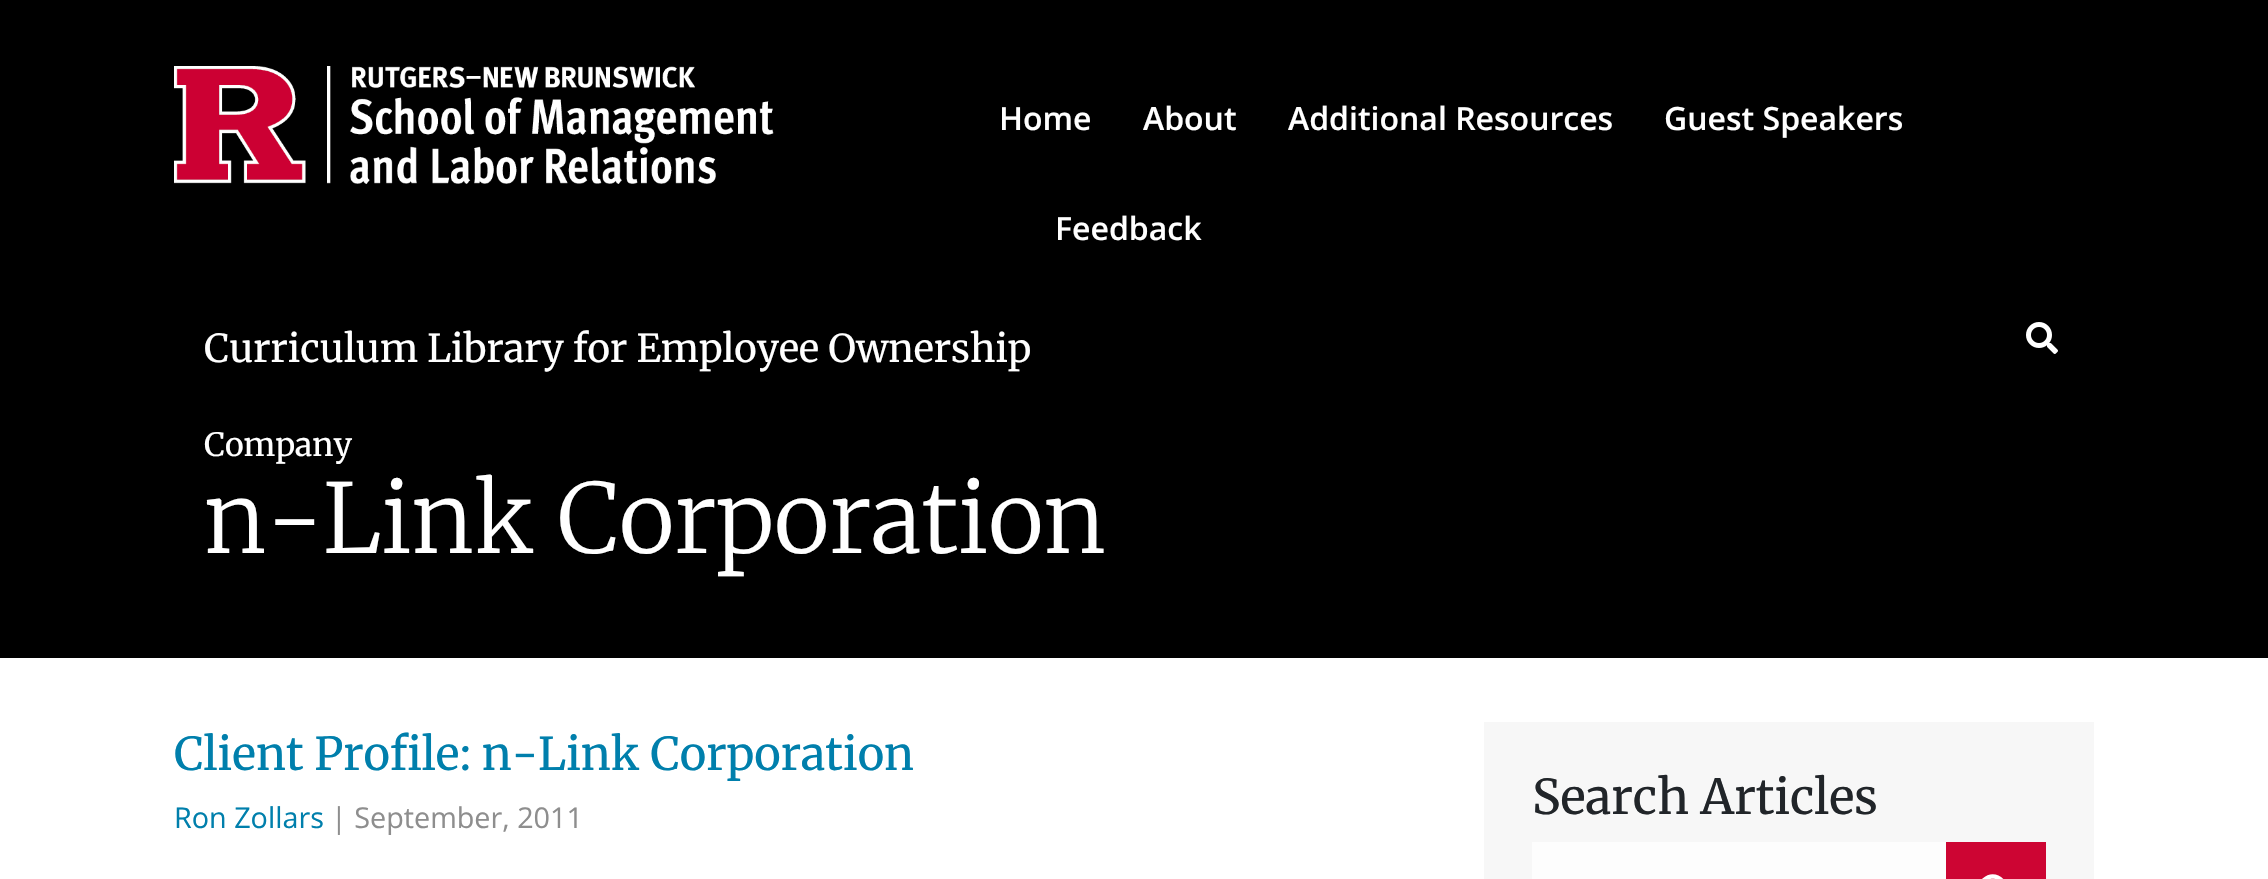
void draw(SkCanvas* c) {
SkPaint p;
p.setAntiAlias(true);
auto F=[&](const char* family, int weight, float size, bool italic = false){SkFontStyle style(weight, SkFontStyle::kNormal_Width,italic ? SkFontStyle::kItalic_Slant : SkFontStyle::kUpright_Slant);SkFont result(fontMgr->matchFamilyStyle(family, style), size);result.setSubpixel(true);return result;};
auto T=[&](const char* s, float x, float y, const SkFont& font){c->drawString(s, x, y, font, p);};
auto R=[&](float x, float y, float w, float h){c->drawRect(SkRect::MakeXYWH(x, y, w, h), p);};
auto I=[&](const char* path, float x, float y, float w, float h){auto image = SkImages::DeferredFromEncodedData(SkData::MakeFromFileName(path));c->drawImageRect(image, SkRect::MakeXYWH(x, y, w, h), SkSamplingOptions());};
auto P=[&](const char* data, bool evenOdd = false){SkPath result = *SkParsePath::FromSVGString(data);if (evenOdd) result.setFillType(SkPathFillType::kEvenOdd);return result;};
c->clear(0xffffffff);
p.setColor(0xff000000);
R(0,0,2268,658);
I("1.png",174,66,600,118);
auto f1 = F("Open Sans",600,32);
p.setColor(0xffffffff);
T("Home",999,130,f1);
T("About",1143,130,f1);
T("Additional Resources",1288,130,f1);
T("Guest Speakers",1664,130,f1);
T("Feedback",1055,240,f1);
I("2.png",2026,322,32,32);
auto f2 = F("Merriweather",400,38.4);
T("Curriculum Library for Employee Ownership",204,362,f2);
auto f3 = F("Merriweather",400,32);
T("Company",204,456,f3);
auto f4 = F("Merriweather",300,96);
T("n-Link Corporation",204,553,f4);
auto f5 = F("Merriweather",400,45.25);
p.setColor(0xff007fac);
T("Client Profile: n-Link Corporation",174,770,f5);
auto f6 = F("Open Sans",400,28.75);
T("Ron Zollars",174,828,f6);
p.setColor(0xff8e8e8e);
T("| September, 2011",331,828,f6);
p.setColor(0xfff7f7f7);
R(1484,722,610,157);
auto f7 = F("Merriweather",400,48);
p.setColor(0xff212529);
T("Search Articles",1532,814,f7);
p.setColor(0xfffdfdfd);
R(1532,842,414,37);
p.setColor(0xffcd0533);
R(1946,842,100,37);
p.setColor(0xffffffff);
c->drawPath(P("M2013.5 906l-9-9c10-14-9-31-22-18.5c-12.5 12.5 4.5 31.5 18.5 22l9 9zm-31-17.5c0-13 20.5-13 20.5 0c0 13.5-20.5 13.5-20.5 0z"),p);
}
